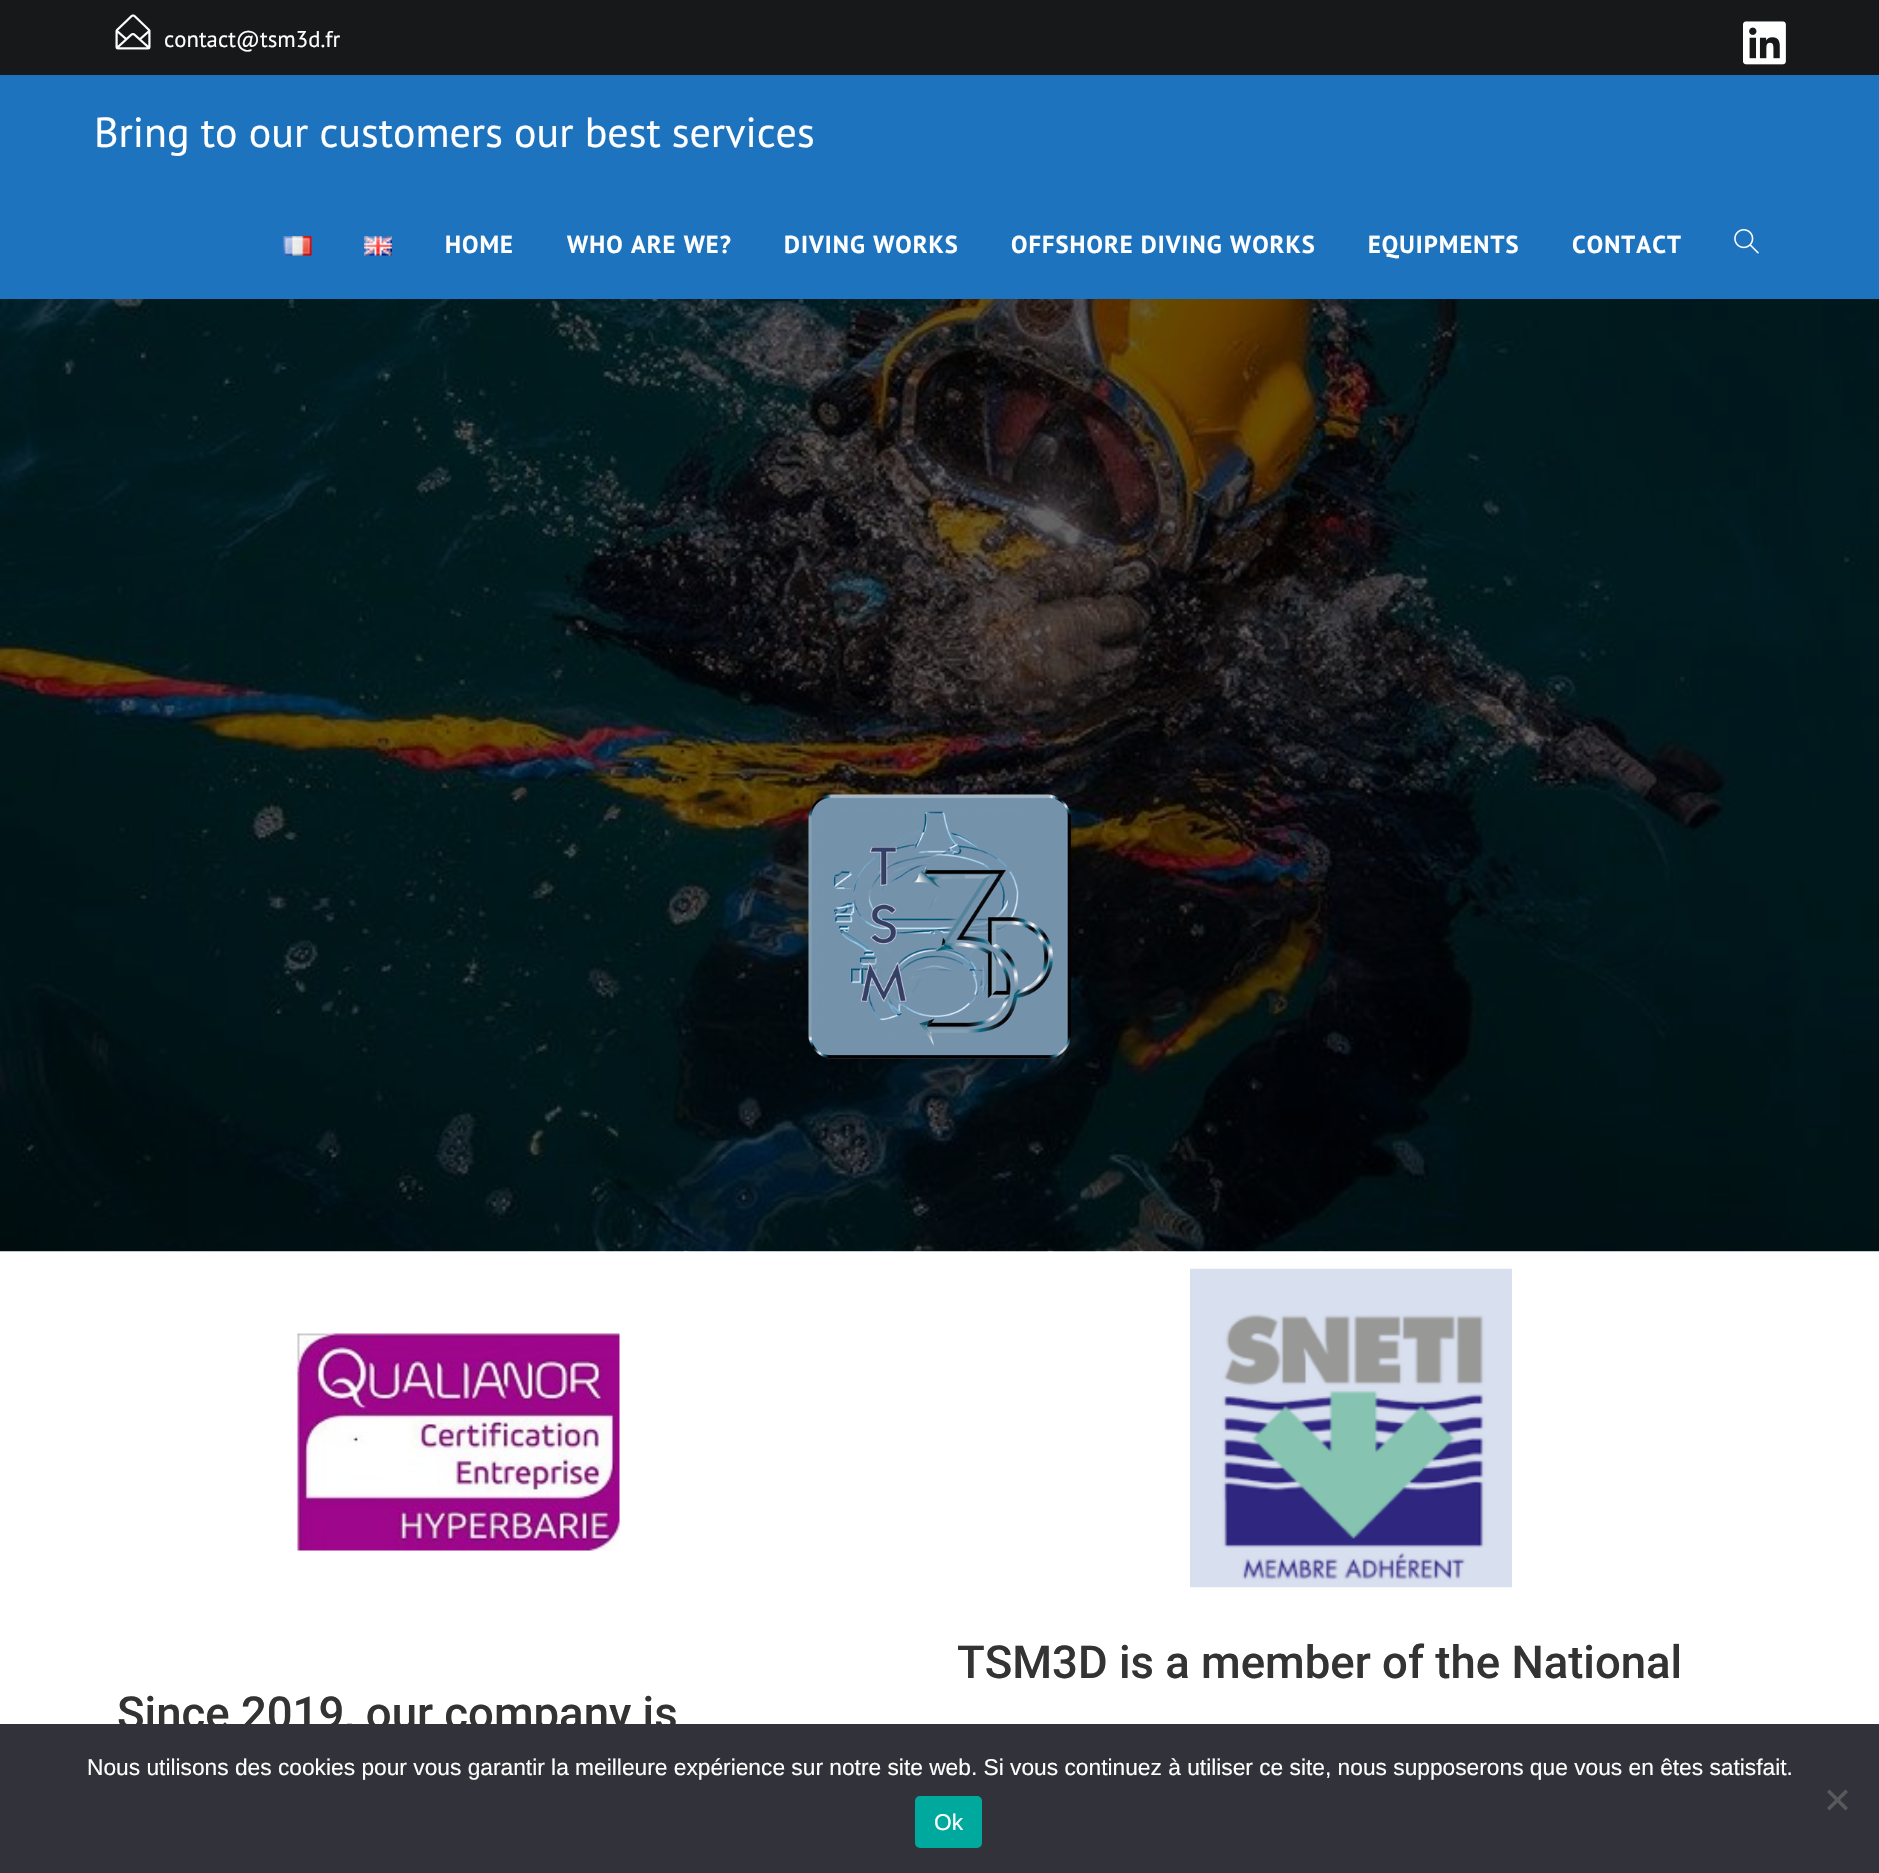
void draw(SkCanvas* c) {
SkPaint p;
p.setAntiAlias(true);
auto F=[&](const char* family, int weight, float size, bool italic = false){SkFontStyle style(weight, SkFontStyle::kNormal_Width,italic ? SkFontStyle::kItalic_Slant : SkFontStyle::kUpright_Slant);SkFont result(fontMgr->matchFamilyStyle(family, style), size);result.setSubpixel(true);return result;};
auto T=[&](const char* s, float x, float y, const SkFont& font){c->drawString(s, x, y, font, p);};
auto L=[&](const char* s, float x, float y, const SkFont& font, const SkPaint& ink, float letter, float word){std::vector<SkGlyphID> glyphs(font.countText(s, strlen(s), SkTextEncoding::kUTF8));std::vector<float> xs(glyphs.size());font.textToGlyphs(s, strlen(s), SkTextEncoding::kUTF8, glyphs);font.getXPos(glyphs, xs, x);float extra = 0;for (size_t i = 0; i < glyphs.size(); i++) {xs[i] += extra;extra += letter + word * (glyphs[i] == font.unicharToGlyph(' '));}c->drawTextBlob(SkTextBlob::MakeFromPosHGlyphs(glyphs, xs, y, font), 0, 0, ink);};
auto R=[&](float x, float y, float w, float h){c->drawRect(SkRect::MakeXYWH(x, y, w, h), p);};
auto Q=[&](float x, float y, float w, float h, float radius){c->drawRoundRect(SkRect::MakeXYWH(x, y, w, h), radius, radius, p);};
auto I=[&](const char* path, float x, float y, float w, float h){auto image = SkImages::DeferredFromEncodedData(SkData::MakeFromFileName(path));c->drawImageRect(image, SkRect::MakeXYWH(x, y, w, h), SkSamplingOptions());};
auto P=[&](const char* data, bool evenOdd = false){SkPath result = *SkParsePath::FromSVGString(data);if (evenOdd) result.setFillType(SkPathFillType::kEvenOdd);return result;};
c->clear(0xffffffff);
p.setColor(0xff161819);
R(0,0,1879,75);
I("1.png",115,14,36,36);
auto f1 = F("PT Sans",400,22.75);
p.setColor(0xffffffff);
T("contact@tsm3d.fr",164,47,f1);
I("2.png",1743,21,43,44);
p.setColor(0xff1e73be);
R(0,75,1879,224);
auto f2 = F("PT Sans",400,42);
p.setColor(0xffffffff);
T("Bring to our customers our best services",94,147,f2);
I("3.png",283,236,29,20);
I("4.png",364,236,28,20);
auto f3 = F("PT Sans",700,24.5);
L("HOME",445,253,f3,p,1.05,0);
L("WHO ARE WE?",567,253,f3,p,1.05,0);
L("DIVING WORKS",784,253,f3,p,1.05,0);
L("OFFSHORE DIVING WORKS",1011,253,f3,p,1.05,0);
L("EQUIPMENTS",1368,253,f3,p,1.05,0);
L("CONTACT",1572,253,f3,p,1.05,0);
I("5.png",1734,229,25,25);
I("6.png",0,299,1879,953);
I("7.png",808,794,263,265);
I("8.png",1190,1268,322,320);
auto f4 = F("Roboto",500,45.5);
p.setColor(0xff333333);
T("TSM3D is a member of the National",957,1678,f4);
I("9.png",297,1333,323,218);
T("Since 2019, our company is",117,1729,f4);
p.setColor(0xff32323a);
R(0,1724,1879,149);
auto f5 = F("Liberation Sans",400,22.75);
p.setColor(0xffffffff);
T("Nous utilisons des cookies pour vous garantir la meilleure expérience sur notre site web. Si vous continuez à utiliser ce site, nous supposerons que vous en êtes satisfait.",87,1775,f5);
p.setColor(0xff59595d);
c->drawPath(P("M1845.5 1789.5l2.5 2.5l-18.5 18.5l-2.5-2.5z"),p);
c->drawPath(P("M1827 1792l2.5-2.5l18.5 18.5l-2.5 2.5z"),p);
p.setColor(0xff00a99d);
Q(915,1796,67,52,5);
p.setColor(0xffffffff);
T("Ok",934,1830,f5);
}
